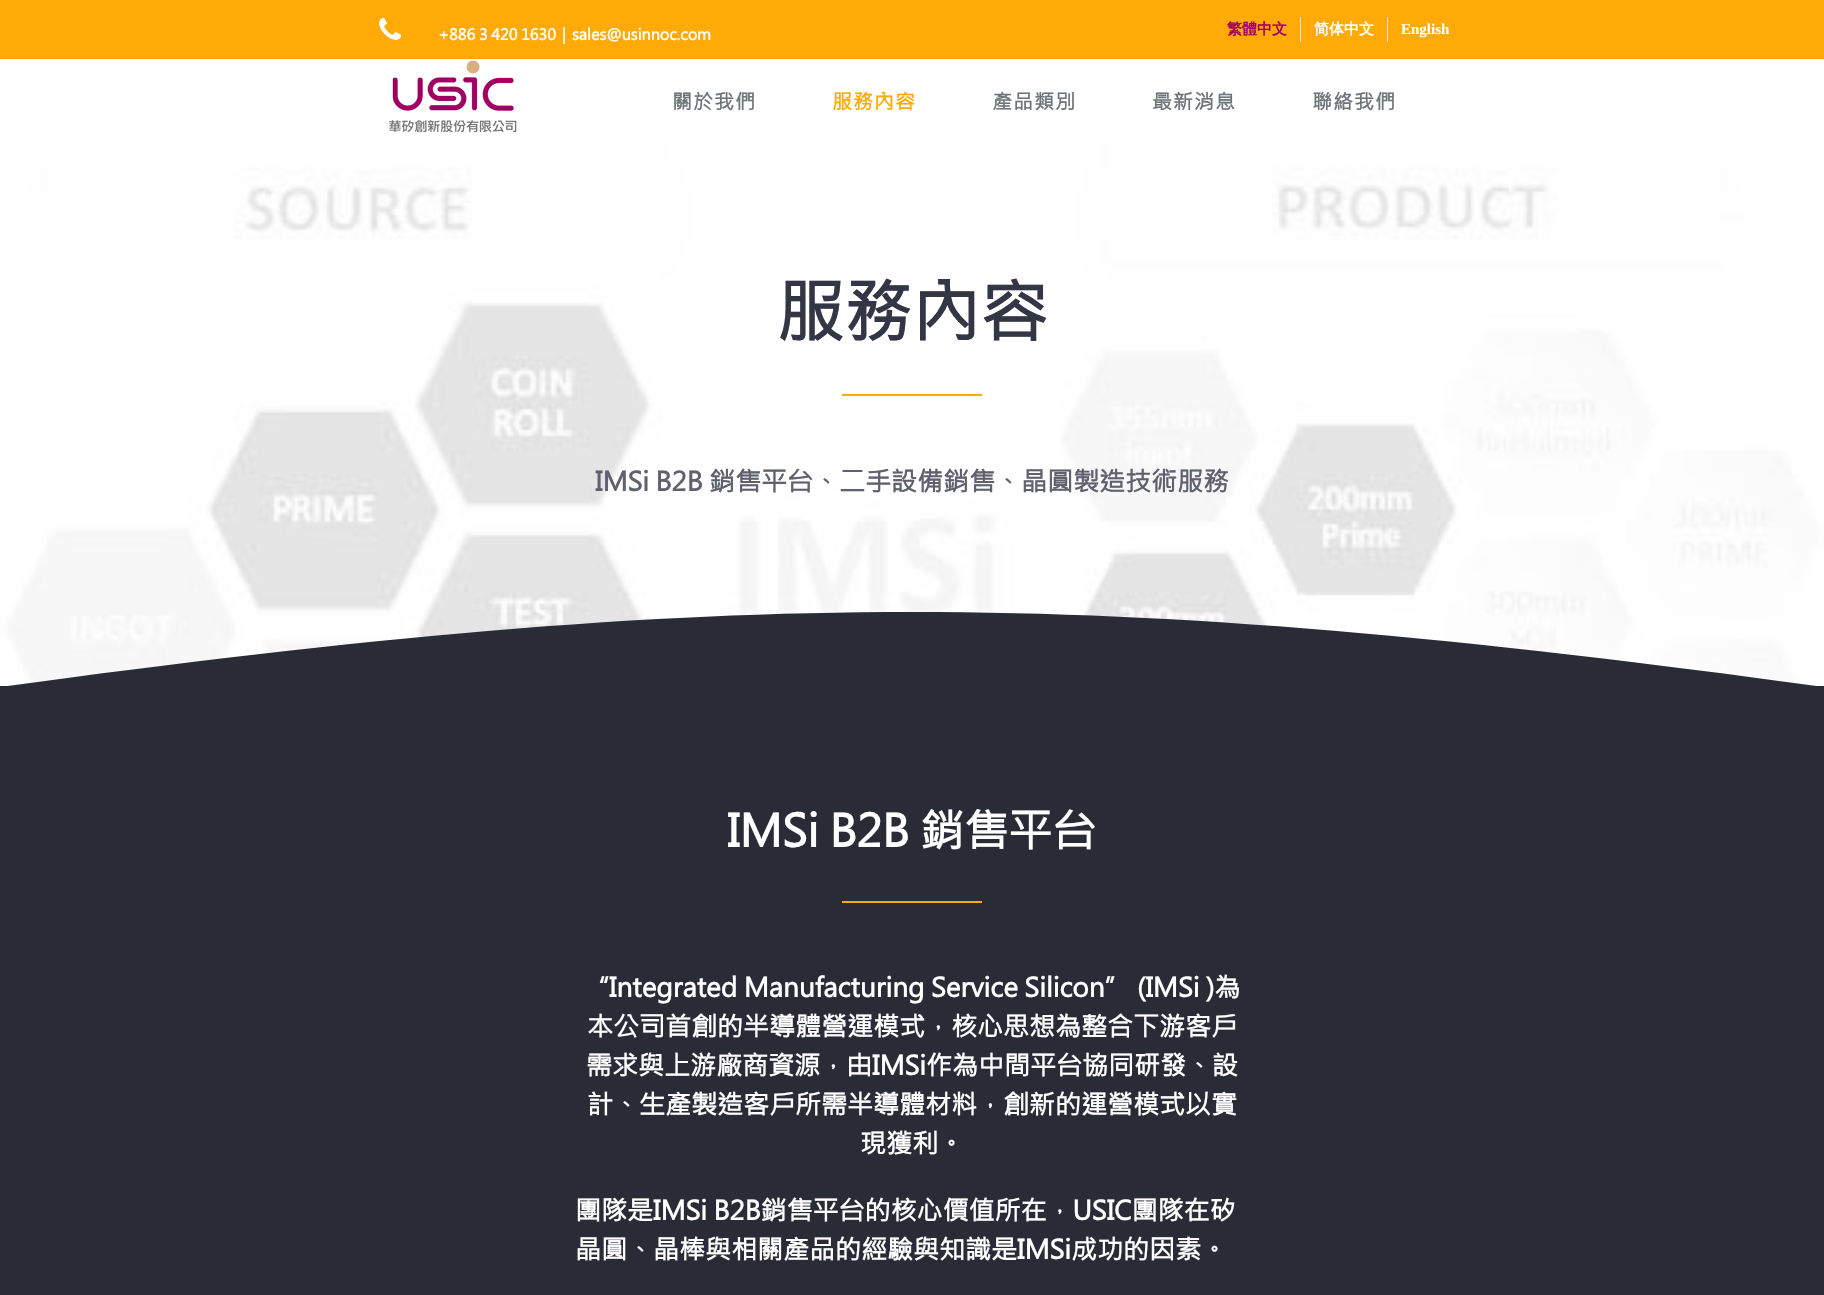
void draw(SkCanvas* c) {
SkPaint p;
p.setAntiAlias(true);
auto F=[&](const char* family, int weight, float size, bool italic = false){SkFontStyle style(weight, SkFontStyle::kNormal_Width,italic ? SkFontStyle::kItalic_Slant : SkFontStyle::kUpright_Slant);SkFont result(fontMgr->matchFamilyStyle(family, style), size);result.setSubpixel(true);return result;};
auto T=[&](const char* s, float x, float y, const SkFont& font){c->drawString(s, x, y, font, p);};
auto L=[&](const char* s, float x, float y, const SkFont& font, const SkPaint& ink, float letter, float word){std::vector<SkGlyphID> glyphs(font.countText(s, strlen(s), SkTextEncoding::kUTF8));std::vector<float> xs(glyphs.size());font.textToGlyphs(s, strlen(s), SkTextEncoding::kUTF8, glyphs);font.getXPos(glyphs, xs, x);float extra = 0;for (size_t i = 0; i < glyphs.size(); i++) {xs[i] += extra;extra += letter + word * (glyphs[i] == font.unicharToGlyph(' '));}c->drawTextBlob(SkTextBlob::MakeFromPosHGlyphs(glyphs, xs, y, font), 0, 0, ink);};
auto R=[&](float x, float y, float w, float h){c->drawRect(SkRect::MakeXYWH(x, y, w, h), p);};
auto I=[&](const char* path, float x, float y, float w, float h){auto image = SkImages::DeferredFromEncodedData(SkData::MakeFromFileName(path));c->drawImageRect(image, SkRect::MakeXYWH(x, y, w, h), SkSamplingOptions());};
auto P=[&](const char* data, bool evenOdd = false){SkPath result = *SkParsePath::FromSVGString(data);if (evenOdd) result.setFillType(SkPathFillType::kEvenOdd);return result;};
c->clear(0xffffffff);
p.setColor(0xffffaa06);
R(0,0,1824,59);
I("1.png",379,17,23,23);
auto f1 = F("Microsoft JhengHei",700,15);
p.setColor(0xffffffff);
T("+886 3 420 1630",438,40,f1);
T("|",562,40,f1);
T("sales@usinnoc.com",572,40,f1);
auto f2 = F("WenQuanYi Zen Hei",700,15);
p.setColor(0xffa40064);
T("繁體中文",1227,34,f2);
p.setColor(0xffe5e5e5);
R(1300,17,1,25);
p.setColor(0xffffffff);
T("简体中文",1314,34,f2);
p.setColor(0xffe5e5e5);
R(1387,17,1,25);
auto f3 = F("Liberation Serif",700,15);
p.setColor(0xffffffff);
T("English",1401,34,f3);
I("2.png",389,60,128,72);
auto f4 = F("Microsoft JhengHei",700,20);
p.setColor(0xff6f767b);
L("關於我們",672,109,f4,p,1,0);
p.setColor(0xffffaa06);
L("服務內容",832,109,f4,p,1,0);
p.setColor(0xff6f767b);
L("產品類別",992,109,f4,p,1,0);
L("最新消息",1152,109,f4,p,1,0);
L("聯絡我們",1312,109,f4,p,1,0);
I("3.png",0,144,1824,542);
auto f5 = F("Microsoft JhengHei",700,68);
p.setColor(0xff333645);
T("服務內容",776,337,f5);
p.setColor(0xffffaa06);
R(842,394,140,2);
auto f6 = F("Microsoft JhengHei",700,26);
p.setColor(0xff5f616f);
T("IMSi B2B 銷售平台、二手設備銷售、晶圓製造技術服務",595,491,f6);
p.setColor(0xff292b37);
R(0,686,1824,609);
c->drawPath(P("M0 687c730-100 1094-100 1824 0z"),p);
auto f7 = F("Microsoft JhengHei",700,44);
p.setColor(0xffffffff);
T("IMSi B2B 銷售平台",727,847,f7);
p.setColor(0xffffaa06);
R(842,901,140,2);
p.setColor(0xffffffff);
T("“Integrated Manufacturing Service Silicon” (IMSi )為",583,997,f6);
T("本公司首創的半導體營運模式，核心思想為整合下游客戶",587,1036,f6);
T("需求與上游廠商資源，由IMSi作為中間平台協同研發、設",586,1075,f6);
T("計、生產製造客戶所需半導體材料，創新的運營模式以實",587,1114,f6);
T("現獲利。",860,1153,f6);
T("團隊是IMSi B2B銷售平台的核心價值所在，USIC團隊在矽",575,1220,f6);
T("晶圓、晶棒與相關產品的經驗與知識是IMSi成功的因素。",575,1259,f6);
}
